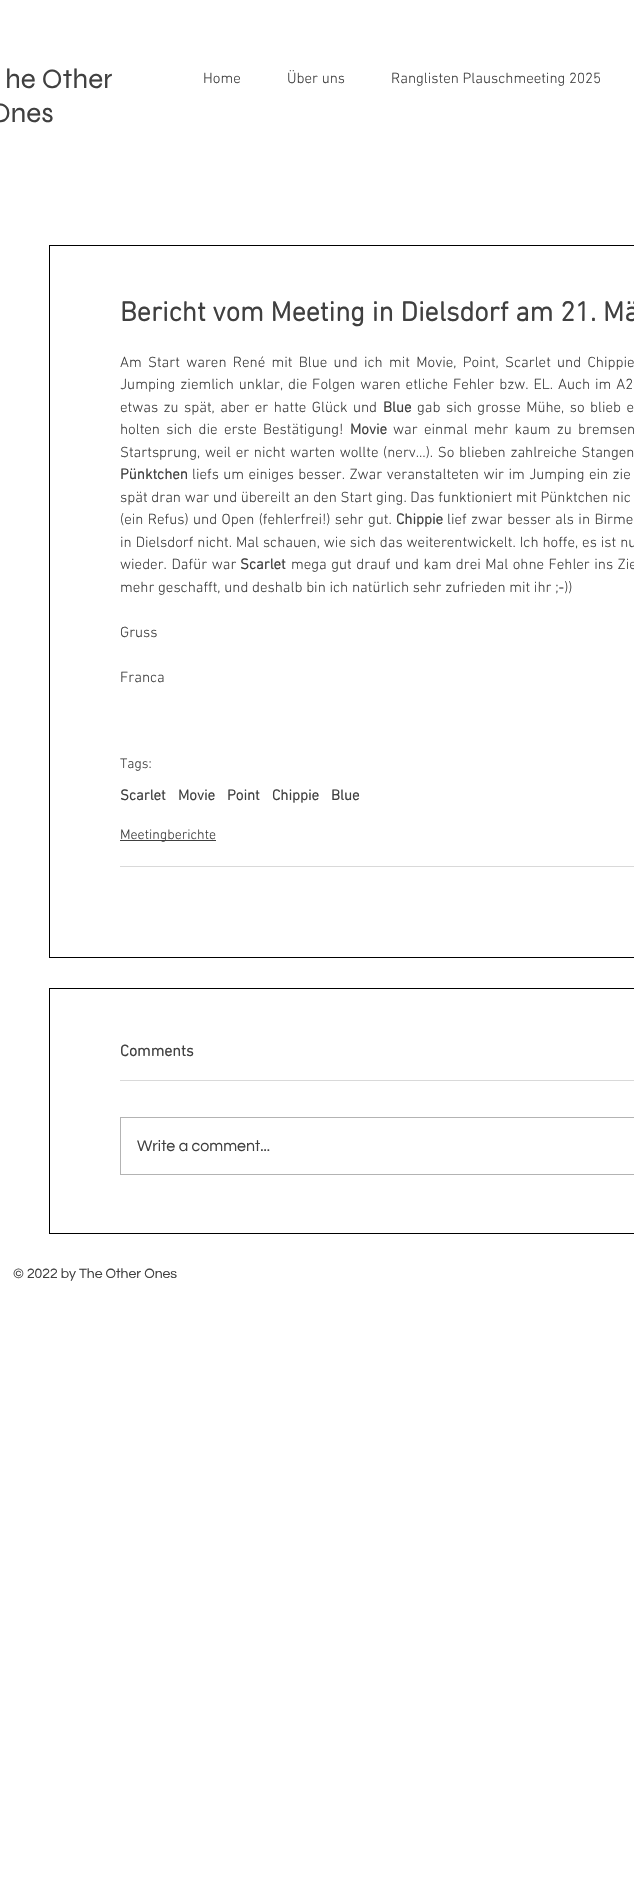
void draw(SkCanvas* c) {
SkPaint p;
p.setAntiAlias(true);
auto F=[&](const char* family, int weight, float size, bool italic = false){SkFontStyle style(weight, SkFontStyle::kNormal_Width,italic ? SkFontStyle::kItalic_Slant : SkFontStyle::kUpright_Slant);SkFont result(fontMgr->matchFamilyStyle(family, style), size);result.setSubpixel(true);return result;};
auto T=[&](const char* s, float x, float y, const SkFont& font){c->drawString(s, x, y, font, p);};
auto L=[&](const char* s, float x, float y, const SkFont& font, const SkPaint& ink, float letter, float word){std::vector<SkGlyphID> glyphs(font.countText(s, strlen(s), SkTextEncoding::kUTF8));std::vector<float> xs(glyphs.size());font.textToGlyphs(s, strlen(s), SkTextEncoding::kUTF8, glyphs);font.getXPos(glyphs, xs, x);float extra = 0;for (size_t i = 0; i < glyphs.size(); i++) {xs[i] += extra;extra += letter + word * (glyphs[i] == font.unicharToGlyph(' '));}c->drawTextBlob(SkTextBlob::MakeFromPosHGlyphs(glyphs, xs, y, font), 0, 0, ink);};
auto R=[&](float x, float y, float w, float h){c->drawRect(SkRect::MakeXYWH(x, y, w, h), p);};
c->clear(0xffffffff);
auto f1 = F("Syne",400,28);
p.setColor(0xff404040);
T("he Other",5,88,f1);
T("Ones",-10,122,f1);
auto f2 = F("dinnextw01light",300,15);
T("Home",203,83,f2);
T("Über uns",287,83,f2);
T("Ranglisten Plauschmeeting 2025",391,83,f2);
p.setStroke(true);
p.setStrokeWidth(1);
p.setColor(0xff000000);
c->drawRect(SkRect::MakeXYWH(49.5,245.5,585,712),p);
auto f3 = F("dinnextw01light",700,28);
p.setStroke(false);
p.setColor(0xff404040);
T("Bericht vom Meeting in Dielsdorf am 21. Mä",120,321,f3);
L("Am Start waren René mit Blue und ich mit Movie, Point, Scarlet und Chippie",120,367,f2,p,0,2.6);
L("Jumping ziemlich unklar, die Folgen waren etliche Fehler bzw. EL. Auch im A2",120,389,f2,p,0,1.25);
L("etwas zu spät, aber er hatte Glück und",120,412,f2,p,0,1.75);
auto f4 = F("dinnextw01light",700,15);
T("Blue",383,412,f4);
L("gab sich grosse Mühe, so blieb e",417,412,f2,p,0,1.75);
L("holten sich die erste Bestätigung!",120,434,f2,p,0,2.6);
T("Movie",350,434,f4);
L("war einmal mehr kaum zu bremsen",393,434,f2,p,0,2.6);
L("Startsprung, weil er nicht warten wollte (nerv…). So blieben zahlreiche Stangen",120,457,f2,p,0,1);
T("Pünktchen",120,479,f4);
L("liefs um einiges besser. Zwar veranstalteten wir im Jumping ein zie",192,479,f2,p,0,.75);
T("spät dran war und übereilt an den Start ging. Das funktioniert mit Pünktchen nic",120,502,f2);
L("(ein Refus) und Open (fehlerfrei!) sehr gut.",120,524,f2,p,0,.75);
T("Chippie",396,524,f4);
L("lief zwar besser als in Birme",447,524,f2,p,0,.75);
L("in Dielsdorf nicht. Mal schauen, wie sich das weiterentwickelt. Ich hoffe, es ist nu",120,547,f2,p,0,.25);
L("wieder. Dafür war",120,569,f2,p,0,1);
T("Scarlet",240,569,f4);
L("mega gut drauf und kam drei Mal ohne Fehler ins Zie",291,569,f2,p,0,.75);
T("mehr geschafft, und deshalb bin ich natürlich sehr zufrieden mit ihr ;-))",120,592,f2);
T("Gruss",120,637,f2);
T("Franca",120,682,f2);
auto f5 = F("dinnextw01light",300,14);
T("Tags:",120,768,f5);
T("Scarlet",120,800,f4);
T("Movie",178,800,f4);
T("Point",227,800,f4);
T("Chippie",272,800,f4);
T("Blue",331,800,f4);
R(120,840,96,1);
T("Meetingberichte",120,839,f5);
p.setColor(0xffd9d9d9);
R(120,866,514,1);
p.setStroke(true);
p.setColor(0xff000000);
c->drawRect(SkRect::MakeXYWH(49.5,988.5,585,245),p);
auto f6 = F("dinnextw01light",700,16);
p.setStroke(false);
p.setColor(0xff404040);
T("Comments",120,1056,f6);
p.setColor(0xffd9d9d9);
R(120,1080,514,1);
p.setStroke(true);
p.setColor(0xffb3b3b3);
c->drawRect(SkRect::MakeXYWH(120.5,1117.5,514,57),p);
auto f7 = F("Questrial",400,16);
p.setStroke(false);
p.setColor(0xff404040);
T("Write a comment...",137,1151,f7);
auto f8 = F("Questrial",400,14);
T("© 2022 by The Other Ones",13,1278,f8);
}
